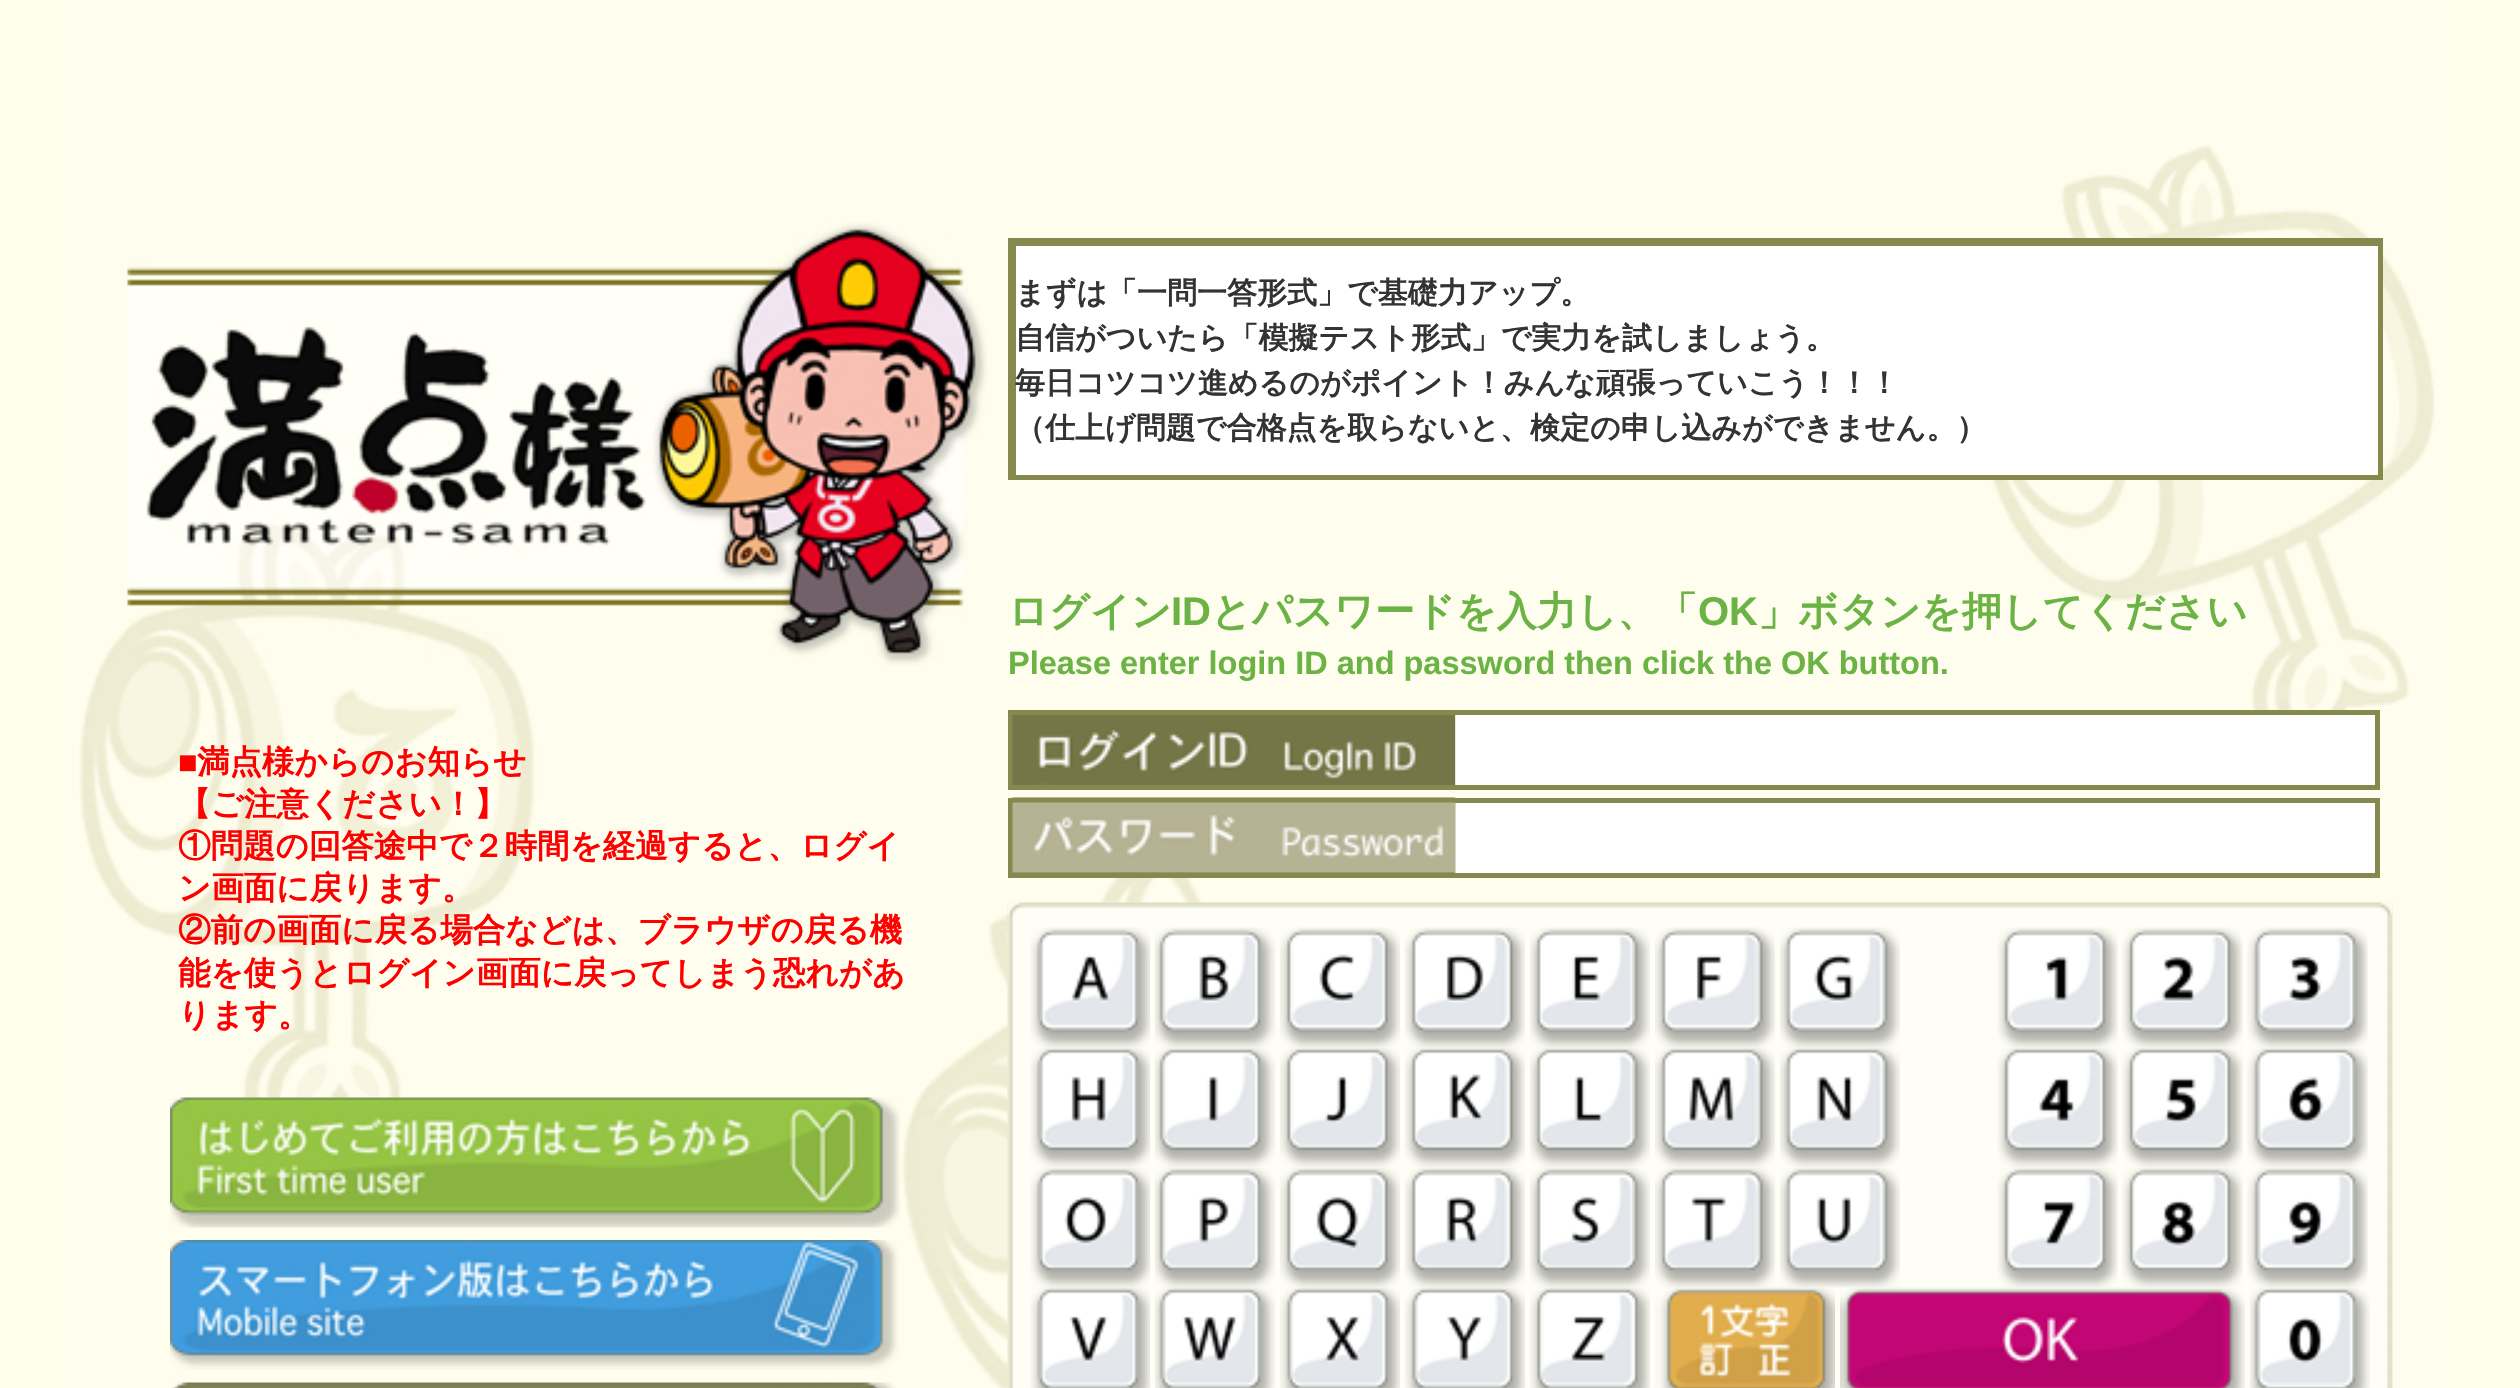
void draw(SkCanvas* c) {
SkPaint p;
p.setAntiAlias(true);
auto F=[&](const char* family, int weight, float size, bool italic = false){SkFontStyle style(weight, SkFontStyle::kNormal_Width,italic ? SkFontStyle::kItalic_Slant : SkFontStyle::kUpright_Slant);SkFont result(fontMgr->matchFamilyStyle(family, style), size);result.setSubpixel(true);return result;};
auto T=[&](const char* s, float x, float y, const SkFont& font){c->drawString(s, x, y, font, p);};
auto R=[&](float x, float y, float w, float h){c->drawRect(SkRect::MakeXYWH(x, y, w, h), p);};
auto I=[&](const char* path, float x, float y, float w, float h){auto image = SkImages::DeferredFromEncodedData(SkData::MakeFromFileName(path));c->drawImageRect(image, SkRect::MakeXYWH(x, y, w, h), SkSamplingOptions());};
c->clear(0xfffefeeb);
p.setColor(0xfffffeee);
R(70,0,2383,1388);
I("1.png",79,145,2356,1243);
p.setColor(0xffffffff);
R(1016,246,1362,229);
p.setColor(0xff85894d);
R(1008,238,1375,8);
R(2378,238,5,242);
R(1008,475,1375,5);
R(1008,238,8,242);
auto f1 = F("WenQuanYi Zen Hei",700,30);
p.setColor(0xff333333);
T("まずは「一問一答形式」で基礎力アップ。",1015,303,f1);
T("自信がついたら「模擬テスト形式」で実力を試しましょう。",1015,348,f1);
T("毎日コツコツ進めるのがポイント！みんな頑張っていこう！！！",1015,393,f1);
T("（仕上げ問題で合格点を取らないと、検定の申し込みができません。）",1015,438,f1);
auto f2 = F("WenQuanYi Zen Hei",700,40);
p.setColor(0xff6bb344);
T("ログイン",1008,625,f2);
auto f3 = F("Liberation Sans",700,40);
T("ID",1171,625,f3);
T("とパスワードを入力し、「",1211,625,f2);
T("OK",1698,625,f3);
T("」ボタンを押してください",1758,625,f2);
auto f4 = F("Liberation Sans",700,32.5);
T("Please enter login ID and password then click the OK button.",1008,674,f4);
I("2.png",1455,715,920,70);
p.setStroke(true);
p.setStrokeWidth(5);
p.setColor(0xff85894d);
c->drawRect(SkRect::MakeXYWH(1010.5,712.5,1367,75),p);
I("3.png",1012,715,443,70);
I("4.png",1012,797,1363,76);
c->drawRect(SkRect::MakeXYWH(1010.5,800.5,1367,75),p);
I("5.png",1012,802,443,71);
I("6.png",1007,902,1386,486);
I("7.png",1007,902,1386,15);
I("8.png",1030,927,120,121);
I("9.png",1155,927,120,121);
I("10.png",1280,927,120,121);
I("11.png",1405,927,120,121);
I("12.png",1530,927,120,121);
I("13.png",1655,927,120,121);
I("14.png",1780,927,120,121);
I("15.png",1997,927,121,121);
I("16.png",2122,927,121,121);
I("17.png",2247,927,121,121);
I("18.png",1030,1047,120,121);
I("19.png",1155,1047,120,121);
I("20.png",1280,1047,120,121);
I("21.png",1405,1047,120,121);
I("22.png",1530,1047,120,121);
I("23.png",1655,1047,120,121);
I("24.png",1780,1047,120,121);
I("25.png",1997,1047,121,121);
I("26.png",2122,1047,121,121);
I("27.png",2247,1047,121,121);
I("28.png",1030,1167,120,121);
I("29.png",1155,1167,120,121);
I("30.png",1280,1167,120,121);
I("31.png",1405,1167,120,121);
I("32.png",1530,1167,120,121);
I("33.png",1655,1167,120,121);
I("34.png",1780,1167,120,121);
I("35.png",1997,1167,121,121);
I("36.png",2122,1167,121,121);
I("37.png",2247,1167,121,121);
I("38.png",1030,1287,120,101);
I("39.png",1155,1287,120,101);
I("40.png",1280,1287,120,101);
I("41.png",1405,1287,120,101);
I("42.png",1530,1287,120,101);
I("43.png",1655,1287,180,101);
I("44.png",1840,1287,405,101);
I("45.png",2250,1287,120,101);
I("46.png",127,222,861,446);
p.setStroke(false);
p.setColor(0xffff0000);
T("■",178,773,f4);
auto f5 = F("WenQuanYi Zen Hei",700,32.5);
T("満点様からのお知らせ",197,773,f5);
T("【ご注意ください！】",178,815,f5);
T("①問題の回答途中で２時間を経過すると、ログイ",178,857,f5);
T("ン画面に戻ります。",178,899,f5);
T("②前の画面に戻る場合などは、ブラウザの戻る機",178,941,f5);
T("能を使うとログイン画面に戻ってしまう恐れがあ",178,984,f5);
T("ります。",178,1026,f5);
I("47.png",170,1097,730,131);
I("48.png",170,1240,729,130);
I("49.png",172,1382,724,6);
}
